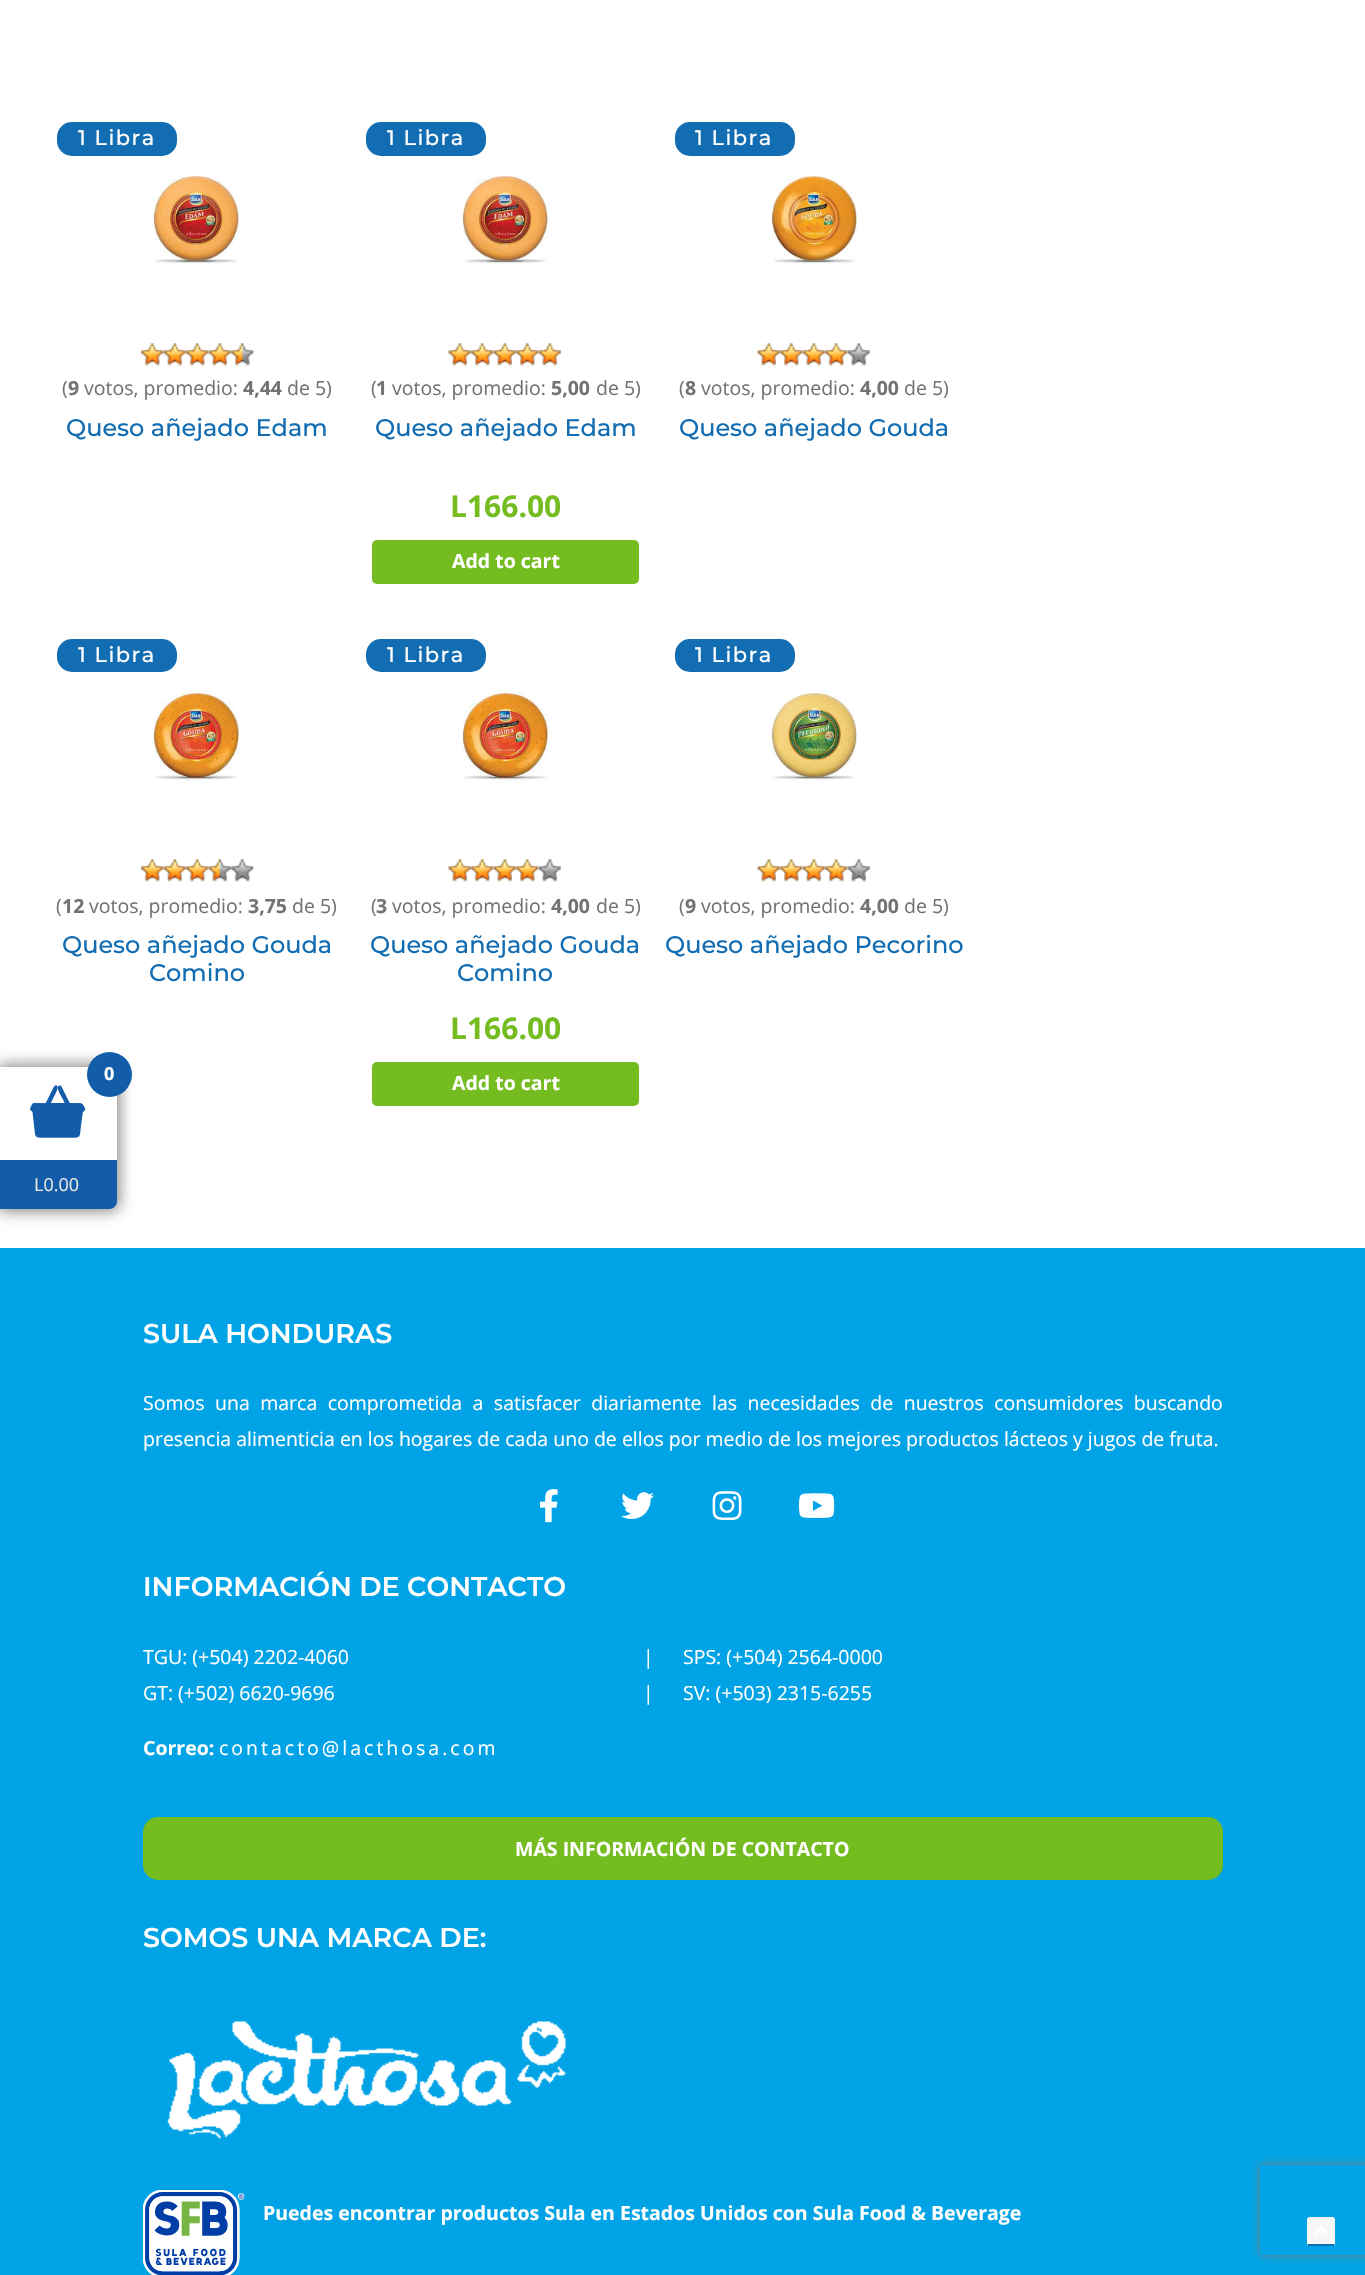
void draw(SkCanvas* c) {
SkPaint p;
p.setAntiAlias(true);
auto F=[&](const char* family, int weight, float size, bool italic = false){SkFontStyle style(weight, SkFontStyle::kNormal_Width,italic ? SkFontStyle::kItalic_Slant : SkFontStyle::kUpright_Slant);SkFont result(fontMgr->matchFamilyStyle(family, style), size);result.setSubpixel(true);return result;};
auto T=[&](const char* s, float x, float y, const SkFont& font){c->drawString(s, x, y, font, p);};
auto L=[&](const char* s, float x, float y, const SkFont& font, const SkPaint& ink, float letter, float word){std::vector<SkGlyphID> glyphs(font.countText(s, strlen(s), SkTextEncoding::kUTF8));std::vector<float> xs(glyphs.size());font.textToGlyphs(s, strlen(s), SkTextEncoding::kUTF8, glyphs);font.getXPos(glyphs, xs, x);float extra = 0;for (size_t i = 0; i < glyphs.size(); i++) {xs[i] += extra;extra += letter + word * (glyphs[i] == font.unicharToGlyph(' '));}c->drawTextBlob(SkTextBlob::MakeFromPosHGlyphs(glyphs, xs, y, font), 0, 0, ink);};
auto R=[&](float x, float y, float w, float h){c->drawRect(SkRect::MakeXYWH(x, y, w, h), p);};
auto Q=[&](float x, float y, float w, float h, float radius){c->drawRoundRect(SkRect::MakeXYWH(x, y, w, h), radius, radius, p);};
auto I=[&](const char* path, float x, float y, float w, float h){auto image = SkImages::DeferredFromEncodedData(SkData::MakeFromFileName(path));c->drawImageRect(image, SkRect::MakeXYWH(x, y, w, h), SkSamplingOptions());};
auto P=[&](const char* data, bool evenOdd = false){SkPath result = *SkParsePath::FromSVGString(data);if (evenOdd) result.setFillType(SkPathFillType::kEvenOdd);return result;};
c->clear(0xffffffff);
p.setColor(0xff136db2);
Q(57,122,120,34,15);
auto f1 = F("Montserrat",500,21);
p.setColor(0xffffffff);
L("1 Libra",78,145,f1,p,1.5,0);
I("1.png",151,173,88,91);
I("2.png",141,343,23,23);
I("3.png",163,343,23,23);
I("2.png",186,343,23,23);
I("3.png",208,343,23,23);
I("4.png",231,343,23,23);
auto f2 = F("Open Sans",400,19.5);
p.setColor(0xff737373);
T("(",62,395,f2);
auto f3 = F("Open Sans",700,19.5);
T("9",68,395,f3);
T("votos, promedio:",84,395,f2);
T("4,44",243,395,f3);
T("de 5)",287,395,f2);
auto f4 = F("Montserrat",500,24);
p.setColor(0xff136db2);
T("Queso añejado Edam",66,436,f4);
Q(366,122,120,34,15);
p.setColor(0xffffffff);
L("1 Libra",387,145,f1,p,1.5,0);
I("1.png",460,173,88,91);
I("5.png",448,343,23,23);
I("2.png",471,343,23,23);
I("3.png",493,343,23,23);
I("2.png",516,343,23,23);
I("3.png",538,343,23,23);
p.setColor(0xff737373);
T("(",371,395,f2);
T("1",376,395,f3);
T("votos, promedio:",392,395,f2);
T("5,00",551,395,f3);
T("de 5)",596,395,f2);
p.setColor(0xff136db2);
T("Queso añejado Edam",375,436,f4);
auto f5 = F("Open Sans",700,30);
p.setColor(0xff74bc1f);
T("L166.00",450,517,f5);
Q(372,540,267,44,5);
p.setColor(0xffffffff);
T("Add to cart",452,568,f3);
p.setColor(0xff136db2);
Q(675,122,120,34,15);
p.setColor(0xffffffff);
L("1 Libra",695,145,f1,p,1.5,0);
I("6.png",771,173,86,91);
I("5.png",757,343,23,23);
I("2.png",780,343,23,23);
I("3.png",802,343,23,23);
I("2.png",825,343,23,23);
I("7.png",847,343,23,23);
p.setColor(0xff737373);
T("(",679,395,f2);
T("8",685,395,f3);
T("votos, promedio:",701,395,f2);
T("4,00",860,395,f3);
T("de 5)",904,395,f2);
p.setColor(0xff136db2);
T("Queso añejado Gouda",679,436,f4);
Q(57,639,120,33,15);
p.setColor(0xffffffff);
L("1 Libra",78,662,f1,p,1.5,0);
I("8.png",153,690,86,91);
I("2.png",141,859,23,23);
I("3.png",163,859,23,23);
I("2.png",186,859,23,23);
I("9.png",208,859,23,23);
I("10.png",231,859,23,23);
p.setColor(0xff737373);
T("(",56,913,f2);
T("12",62,913,f3);
T("votos, promedio:",89,913,f2);
T("3,75",248,913,f3);
T("de 5)",292,913,f2);
p.setColor(0xff136db2);
T("Queso añejado Gouda",62,953,f4);
T("Comino",149,981,f4);
Q(366,639,120,33,15);
p.setColor(0xffffffff);
L("1 Libra",387,662,f1,p,1.5,0);
I("8.png",462,690,86,91);
I("5.png",448,859,23,23);
I("2.png",471,859,23,23);
I("3.png",493,859,23,23);
I("2.png",516,859,23,23);
I("7.png",538,859,23,23);
p.setColor(0xff737373);
T("(",371,913,f2);
T("3",376,913,f3);
T("votos, promedio:",392,913,f2);
T("4,00",551,913,f3);
T("de 5)",596,913,f2);
p.setColor(0xff136db2);
T("Queso añejado Gouda",370,953,f4);
T("Comino",457,981,f4);
p.setColor(0xff74bc1f);
T("L166.00",450,1039,f5);
Q(372,1062,267,44,5);
p.setColor(0xffffffff);
T("Add to cart",452,1090,f3);
p.setColor(0xff136db2);
Q(675,639,120,33,15);
p.setColor(0xffffffff);
L("1 Libra",695,662,f1,p,1.5,0);
I("11.png",771,690,86,91);
I("5.png",757,859,23,23);
I("2.png",780,859,23,23);
I("3.png",802,859,23,23);
I("2.png",825,859,23,23);
I("7.png",847,859,23,23);
p.setColor(0xff737373);
T("(",679,913,f2);
T("9",685,913,f3);
T("votos, promedio:",701,913,f2);
T("4,00",860,913,f3);
T("de 5)",904,913,f2);
p.setColor(0xff136db2);
T("Queso añejado Pecorino",665,953,f4);
p.setColor(0xff858080);
p.setMaskFilter(SkMaskFilter::MakeBlur(kNormal_SkBlurStyle, 7.5));
c->drawRoundRect(SkRect::MakeXYWH(-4,1065,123,146),9,9,p);
p.setMaskFilter(nullptr);
p.setColor(0xffffffff);
R(0,1067,117,93);
p.setColor(0xff125ca9);
c->drawCircle(109.5,1074.5,22.5,p);
auto f6 = F("Open Sans",700,18);
p.setColor(0xffffffff);
T("0",104,1080,f6);
I("12.png",30,1085,56,53);
p.setColor(0xff125ca9);
c->drawPath(P("M-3 1160h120v41c0 4.5-3.5 8-8 8h-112z"),p);
auto f7 = F("Open Sans",400,18);
p.setColor(0xffe6e4e4);
T("L0.00",34,1191,f7);
p.setColor(0xff00a3e5);
R(0,1248,1365,1027);
auto f8 = F("Montserrat",600,27);
p.setColor(0xffffffff);
T("SULA HONDURAS",143,1343,f8);
L("Somos una marca comprometida a satisfacer diariamente las necesidades de nuestros consumidores buscando",143,1410,f2,p,0,5.4);
T("presencia alimenticia en los hogares de cada uno de ellos por medio de los mejores productos lácteos y jugos de fruta.",143,1446,f2);
I("13.png",540,1489,18,34);
I("14.png",621,1492,33,27);
I("15.png",712,1491,30,30);
I("16.png",798,1493,37,25);
T("INFORMACIÓN DE CONTACTO",143,1596,f8);
T("TGU: (+504) 2202-4060",143,1664,f2);
T("|",643,1664,f2);
T("SPS: (+504) 2564-0000",683,1664,f2);
T("GT: (+502) 6620-9696",143,1700,f2);
T("|",643,1700,f2);
T("SV: (+503) 2315-6255",683,1700,f2);
T("Correo:",143,1755,f3);
L("contacto@lacthosa.com",219,1755,f2,p,3,0);
p.setColor(0xff74bc1f);
Q(143,1817,1080,63,15);
p.setColor(0xffffffff);
T("MÁS INFORMACIÓN DE CONTACTO",515,1856,f3);
T("SOMOS UNA MARCA DE:",143,1947,f8);
I("17.png",167,2021,399,118);
I("18.png",143,2190,102,85);
T("Puedes encontrar productos Sula en Estados Unidos con Sula Food & Beverage",263,2220,f3);
c->save();
c->clipPath(P("M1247 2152h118v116h-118zm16 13h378c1.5 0 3 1.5 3 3v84c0 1.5-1.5 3-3 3h-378c-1.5 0-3-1.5-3-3v-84c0-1.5 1.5-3 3-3z",true),true);
p.setColor(0xff808080);
p.setMaskFilter(SkMaskFilter::MakeBlur(kNormal_SkBlurStyle, 4));
c->drawRoundRect(SkRect::MakeXYWH(1260,2165,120,90),3,3,p);
p.setMaskFilter(nullptr);
c->restore();
p.setColor(0xfff7f7f7);
Q(1307,2217,28,29,3);
p.setColor(0xff136db2);
R(1308,2244,26,2);
I("19.png",1314,2226,13,8);
}
